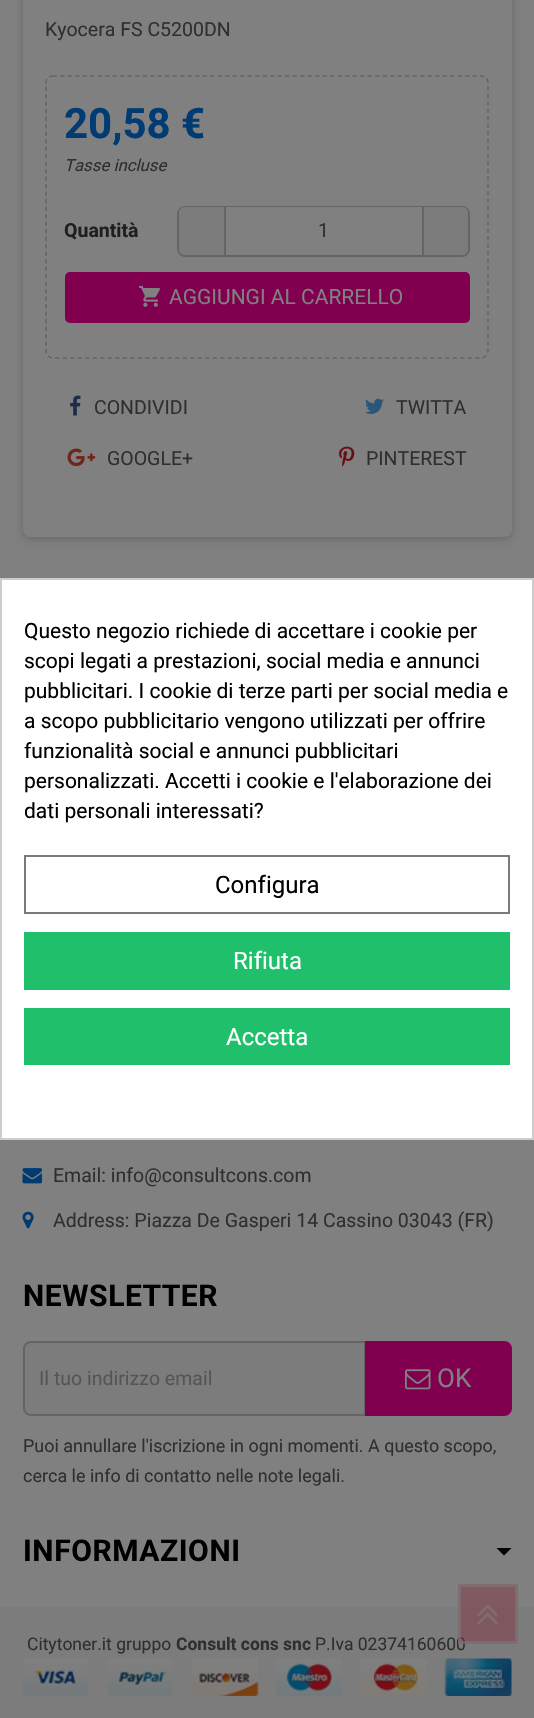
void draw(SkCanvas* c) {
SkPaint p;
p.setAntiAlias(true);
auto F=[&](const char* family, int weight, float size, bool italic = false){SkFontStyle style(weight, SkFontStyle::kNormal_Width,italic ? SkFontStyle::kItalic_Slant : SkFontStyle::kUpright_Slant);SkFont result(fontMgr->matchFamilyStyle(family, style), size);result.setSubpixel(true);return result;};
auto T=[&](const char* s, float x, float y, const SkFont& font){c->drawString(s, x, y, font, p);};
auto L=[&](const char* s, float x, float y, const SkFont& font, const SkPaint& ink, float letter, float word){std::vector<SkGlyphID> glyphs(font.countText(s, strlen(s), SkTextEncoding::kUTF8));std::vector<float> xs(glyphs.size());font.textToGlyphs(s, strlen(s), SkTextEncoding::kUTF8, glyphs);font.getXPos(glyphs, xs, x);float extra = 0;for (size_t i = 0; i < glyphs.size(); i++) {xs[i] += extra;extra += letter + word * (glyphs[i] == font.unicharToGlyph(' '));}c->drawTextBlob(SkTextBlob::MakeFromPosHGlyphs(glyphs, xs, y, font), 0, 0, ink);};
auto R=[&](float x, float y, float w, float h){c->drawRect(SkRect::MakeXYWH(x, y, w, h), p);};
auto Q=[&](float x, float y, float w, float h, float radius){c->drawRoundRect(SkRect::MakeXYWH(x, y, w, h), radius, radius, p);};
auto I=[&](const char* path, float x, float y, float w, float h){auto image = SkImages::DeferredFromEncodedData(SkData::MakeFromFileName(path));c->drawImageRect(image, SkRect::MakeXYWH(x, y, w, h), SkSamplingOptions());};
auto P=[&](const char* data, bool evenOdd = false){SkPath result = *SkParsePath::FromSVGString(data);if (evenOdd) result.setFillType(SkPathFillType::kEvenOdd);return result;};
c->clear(0xff808080);
p.setColor(0x33000000);
p.setMaskFilter(SkMaskFilter::MakeBlur(kNormal_SkBlurStyle, 4));
c->drawRoundRect(SkRect::MakeXYWH(23,-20,489,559),8,8,p);
p.setMaskFilter(nullptr);
p.setColor(0xff808080);
Q(23,-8,489,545,8);
auto f1 = F("Roboto",400,19.5);
p.setColor(0xff2f2f2f);
T("Kyocera FS C5200DN",45,36,f1);
p.setStroke(true);
p.setStrokeWidth(1.5);
p.setColor(0xff646464);
p.setPathEffect(SkDashPathEffect::Make({{4.5f,3}}, 0));
c->drawPath(P("M52.5 76h429c3.5 0 6.5 3 6.5 6.5v268.5c0 3.5-3 7-6.5 7h-429c-3.5 0-6.5-3.5-6.5-7v-268.5c0-3.5 3-6.5 6.5-6.5z"),p);
p.setPathEffect(nullptr);
auto f2 = F("Roboto",700,42);
p.setStroke(false);
p.setColor(0xff003b73);
T("20,58 €",64,138,f2);
auto f3 = F("Roboto",400,16.75,true);
p.setColor(0xff2f2f2f);
T("Tasse incluse",64,171,f3);
auto f4 = F("Roboto",700,19.5);
p.setColor(0xff1f1f1f);
T("Quantità",64,237,f4);
p.setStroke(true);
p.setStrokeWidth(2);
p.setColor(0xff646464);
c->drawRoundRect(SkRect::MakeXYWH(178,207,291,49),7,7,p);
p.setStroke(false);
p.setColor(0xff7c7c7c);
c->drawPath(P("M185 207h39v48h-39c-3.5 0-6-2.5-6-6v-36c0-3.5 2.5-6 6-6z"),p);
p.setColor(0xff808080);
R(226,207,196,1);
p.setColor(0xff7c7c7c);
c->drawPath(P("M423 207h39c3.5 0 6 2.5 6 6v36c0 3.5-2.5 6-6 6h-39z"),p);
p.setColor(0xff646464);
R(422,207,2,48);
R(224,207,2,48);
p.setColor(0xff2f2f2f);
T("1",318,237,f1);
p.setColor(0xff80004f);
Q(65,272,405,51,5);
I("1.png",139,285,21,22);
auto f5 = F("Roboto",400,21);
p.setColor(0xff808080);
T("AGGIUNGI AL CARRELLO",169,304,f5);
I("2.png",70,395,11,21);
p.setColor(0xff2f2f2f);
T("CONDIVIDI",94,414,f1);
I("3.png",365,398,19,16);
T("TWITTA",396,414,f1);
I("4.png",67,448,29,19);
T("GOOGLE+",107,465,f1);
I("5.png",339,446,16,21);
T("PINTEREST",366,465,f1);
I("6.png",22,1168,20,16);
T("Email: info@consultcons.com",53,1182,f1);
I("7.png",22,1211,12,18);
T("Address: Piazza De Gasperi 14 Cassino 03043 (FR)",53,1227,f1);
auto f6 = F("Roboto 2",700,30);
p.setColor(0xff000000);
L("NEWSLETTER",23,1306,f6,p,.6,0);
p.setColor(0xff7c7c7c);
c->drawPath(P("M31 1342h334v73h-334c-4 0-7-3-7-7v-59c0-4 3-7 7-7z"),p);
p.setStroke(true);
p.setColor(0xff646464);
c->drawPath(P("M31 1342h334v73h-334c-4 0-7-3-7-7v-59c0-4 3-7 7-7z"),p);
p.setStroke(false);
p.setColor(0xff555555);
T("Il tuo indirizzo email",39,1385,f1);
p.setColor(0xff80004f);
c->drawPath(P("M365 1341h139c4.5 0 8 3.5 8 8v59c0 4.5-3.5 8-8 8h-139z"),p);
I("8.png",405,1369,26,21);
auto f7 = F("Roboto",400,26);
p.setColor(0xff808080);
T("OK",437,1387,f7);
auto f8 = F("Roboto",400,17.95);
p.setColor(0xff2f2f2f);
T("Puoi annullare l'iscrizione in ogni momenti. A questo scopo,",23,1452,f8);
T("cerca le info di contatto nelle note legali.",23,1482,f8);
p.setColor(0xff000000);
L("INFORMAZIONI",23,1561,f6,p,.6,0);
c->drawPath(P("M496.5 1548h15l-7.5 7.5z"),p);
p.setColor(0xff7c7c7c);
R(0,1607,534,111);
auto f9 = F("Roboto",400,17.5);
p.setColor(0xff2f2f2f);
T("Citytoner.it gruppo",27,1650,f9);
auto f10 = F("Roboto",700,17.5);
T("Consult cons snc",176,1650,f10);
T("P.Iva 02374160600",315,1650,f9);
I("9.png",22,1658,490,38);
p.setColor(0xffffffff);
c->drawRect(SkRect::MakeXYWH(1,579,532,560),p);
p.setStroke(true);
p.setColor(0xffcccccc);
c->drawRect(SkRect::MakeXYWH(1,579,532,560),p);
p.setStroke(false);
p.setColor(0xff000000);
T("Questo negozio richiede di accettare i cookie per",24,638,f5);
T("scopi legati a prestazioni, social media e annunci",24,668,f5);
T("pubblicitari. I cookie di terze parti per social media e",24,698,f5);
T("a scopo pubblicitario vengono utilizzati per offrire",24,728,f5);
T("funzionalità social e annunci pubblicitari",24,758,f5);
T("personalizzati. Accetti i cookie e l'elaborazione dei",24,788,f5);
T("dati personali interessati?",24,818,f5);
p.setStroke(true);
p.setColor(0xff7a7a7a);
c->drawRect(SkRect::MakeXYWH(25,856,484,57),p);
auto f11 = F("Roboto",400,24);
p.setStroke(false);
p.setColor(0xff000000);
T("Configura",215,893,f11);
p.setColor(0xff20bf6b);
R(24,932,486,58);
p.setColor(0xffffffff);
T("Rifiuta",233,969,f11);
p.setColor(0xff20bf6b);
R(24,1008,486,57);
p.setColor(0xffffffff);
T("Accetta",226,1045,f11);
p.setColor(0x807f3141);
R(458,1584,60,60);
p.setStroke(true);
p.setStrokeWidth(3);
p.setColor(0x80808080);
c->drawRect(SkRect::MakeXYWH(459.5,1585.5,57,57),p);
I("10.png",477,1604,21,21);
}
